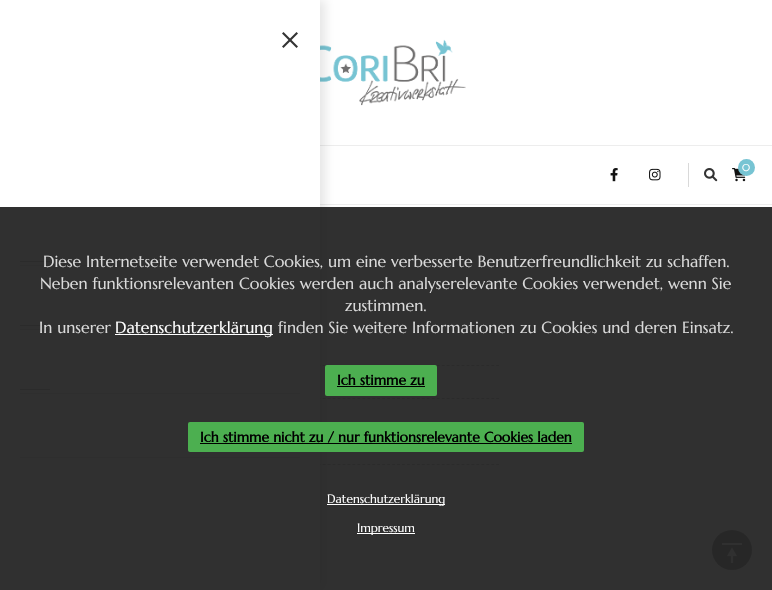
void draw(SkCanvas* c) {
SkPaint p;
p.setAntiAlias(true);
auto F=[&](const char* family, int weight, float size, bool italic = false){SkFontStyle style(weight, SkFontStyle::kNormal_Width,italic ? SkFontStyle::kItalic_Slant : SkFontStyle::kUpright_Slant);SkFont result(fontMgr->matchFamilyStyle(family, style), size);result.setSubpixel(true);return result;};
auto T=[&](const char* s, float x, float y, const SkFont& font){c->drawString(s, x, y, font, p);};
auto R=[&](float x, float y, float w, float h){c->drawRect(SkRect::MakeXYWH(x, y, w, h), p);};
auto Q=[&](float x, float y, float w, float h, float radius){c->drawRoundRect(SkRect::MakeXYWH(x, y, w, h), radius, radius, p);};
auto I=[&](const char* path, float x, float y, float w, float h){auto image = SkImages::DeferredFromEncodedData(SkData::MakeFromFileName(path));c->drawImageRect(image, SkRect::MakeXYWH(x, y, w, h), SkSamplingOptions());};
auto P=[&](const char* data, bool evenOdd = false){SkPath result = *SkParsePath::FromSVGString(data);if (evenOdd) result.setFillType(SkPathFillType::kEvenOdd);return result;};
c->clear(0xffffffff);
I("1.png",320,39,146,67);
p.setColor(0xffededed);
R(320,145,452,1);
R(320,204,452,1);
p.setStroke(true);
p.setStrokeWidth(1);
p.setColor(0xffcccccc);
p.setPathEffect(SkDashPathEffect::Make({{3,1.96f}}, 0));
c->drawPath(P("M273 365.5h226"),p);
p.setPathEffect(nullptr);
p.setPathEffect(SkDashPathEffect::Make({{3,1.96f}}, 0));
c->drawPath(P("M273 398.5h226"),p);
p.setPathEffect(nullptr);
p.setPathEffect(SkDashPathEffect::Make({{3,1.96f}}, 0));
c->drawPath(P("M273 464.5h226"),p);
p.setPathEffect(nullptr);
p.setStroke(false);
p.setColor(0x1a000000);
p.setMaskFilter(SkMaskFilter::MakeBlur(kNormal_SkBlurStyle, 5));
c->drawRect(SkRect::MakeXYWH(5,0,320,590),p);
p.setMaskFilter(nullptr);
p.setColor(0xffffffff);
R(0,0,320,590);
p.setColor(0xff333333);
c->drawPath(P("M283.5 32l14.5 14.5l-1.5 1.5l-14.5-14.5z"),p);
c->drawPath(P("M282 46.5l14.5-14.5l1.5 1.5l-14.5 14.5z"),p);
p.setColor(0xffcccccc);
R(20,261,30,1);
p.setColor(0xffe6e6e6);
R(20,265,280,1);
p.setColor(0xffcccccc);
R(20,325,30,1);
p.setColor(0xffe6e6e6);
R(20,329,280,1);
p.setColor(0xffcccccc);
R(20,389,30,1);
p.setColor(0xffe6e6e6);
R(20,393,280,1);
R(20,457,280,1);
I("2.png",610,168,8,14);
I("3.png",649,168,12,13);
p.setColor(0xffd9d9d9);
R(688,163,1,24);
I("4.png",704,168,14,14);
I("5.png",732,168,14,14);
p.setColor(0xff77c4d3);
c->drawCircle(746.5,167.5,8.5,p);
auto f1 = F("Marcellus",400,10);
p.setColor(0xffffffff);
T("0",742,171,f1);
p.setColor(0xffa1a1a1);
c->drawCircle(732,550,20,p);
I("6.png",722,543,20,20);
p.setColor(0xe6191919);
R(0,207,772,383);
auto f2 = F("Marcellus",400,16);
p.setColor(0xffdadada);
T("Diese Internetseite verwendet Cookies, um eine verbesserte Benutzerfreundlichkeit zu schaffen.",43,267,f2);
T("Neben funktionsrelevanten Cookies werden auch analyserelevante Cookies verwendet, wenn Sie",40,289,f2);
T("zustimmen.",345,311,f2);
T("In unserer",39,333,f2);
p.setColor(0xffffffff);
R(115,334,158,1);
T("Datenschutzerklärung",115,333,f2);
p.setColor(0xffdadada);
T("finden Sie weitere Informationen zu Cookies und deren Einsatz.",278,333,f2);
p.setColor(0xff4caf50);
Q(325,365,112,31,2);
auto f3 = F("Marcellus",700,14);
p.setColor(0xff000000);
T("Ich stimme zu",337,385,f3);
R(337,386,88,1);
p.setColor(0xff4caf50);
Q(188,422,396,30,2);
p.setColor(0xff000000);
T("Ich stimme nicht zu / nur funktionsrelevante Cookies laden",200,442,f3);
R(200,443,372,1);
p.setColor(0xffffffff);
R(327,504,118,1);
auto f4 = F("Marcellus",400,12);
T("Datenschutzerklärung",327,503,f4);
R(357,533,58,1);
T("Impressum",357,532,f4);
}
